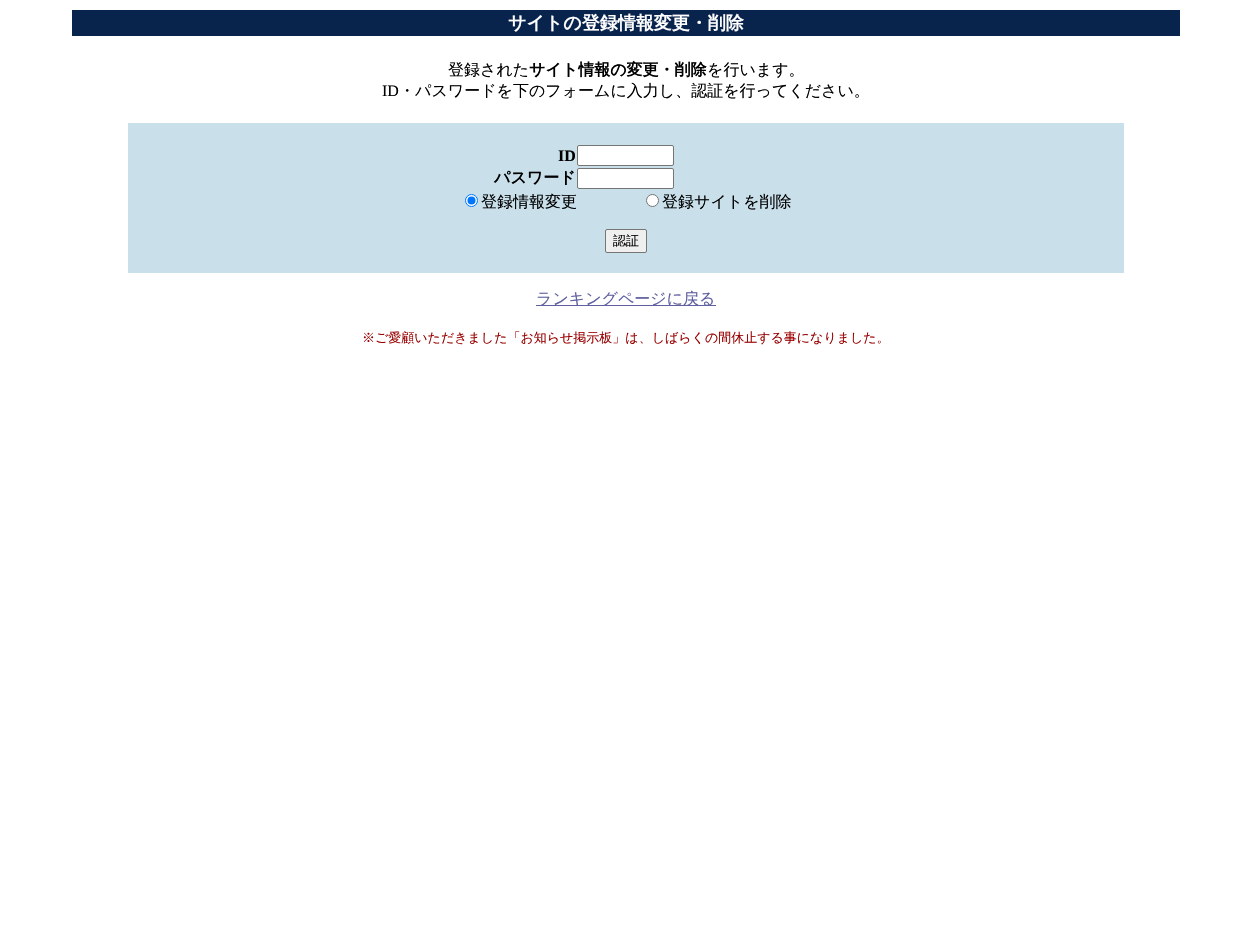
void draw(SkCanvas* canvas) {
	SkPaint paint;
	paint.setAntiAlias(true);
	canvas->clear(0xffffffff);
	paint.setColor(0xff08234c);
	canvas->drawRect(SkRect::MakeXYWH(72, 10, 1108, 26), paint);
	SkFont f1(fontMgr->matchFamilyStyle("WenQuanYi Zen Hei", SkFontStyle::Bold()), 18);
	f1.setSubpixel(true);
	paint.setColor(0xffffffff);
	canvas->drawString("サイトの登録情報変更・削除", 508, 29, f1, paint);
	SkFont f2(fontMgr->matchFamilyStyle("WenQuanYi Zen Hei", SkFontStyle(500, SkFontStyle::kNormal_Width, SkFontStyle::kUpright_Slant)), 16);
	f2.setSubpixel(true);
	paint.setColor(0xff000000);
	canvas->drawString("登録された", 448, 75, f2, paint);
	SkFont f3(fontMgr->matchFamilyStyle("WenQuanYi Zen Hei", SkFontStyle::Bold()), 16);
	f3.setSubpixel(true);
	canvas->drawString("サイト情報の変更・削除", 529, 75, f3, paint);
	canvas->drawString("を行います。", 707, 75, f2, paint);
	SkFont f4(fontMgr->matchFamilyStyle("Liberation Serif", SkFontStyle::Normal()), 16);
	f4.setSubpixel(true);
	canvas->drawString("ID", 382, 96, f4, paint);
	canvas->drawString("・パスワードを下のフォームに入力し、認証を行ってください。", 399, 96, f2, paint);
	paint.setColor(0xffc9e0eb);
	canvas->drawRect(SkRect::MakeXYWH(128, 123, 996, 150), paint);
	SkFont f5(fontMgr->matchFamilyStyle("Liberation Serif", SkFontStyle::Bold()), 16);
	f5.setSubpixel(true);
	paint.setColor(0xff000000);
	canvas->drawString("ID", 558, 161, f5, paint);
	paint.setColor(0xffffffff);
	canvas->drawRoundRect(SkRect::MakeXYWH(577.5, 145.5, 96, 20), 1.5, 1.5, paint);
	paint.setStroke(true);
	paint.setStrokeWidth(1);
	paint.setColor(0xff767676);
	canvas->drawRoundRect(SkRect::MakeXYWH(577.5, 145.5, 96, 20), 1.5, 1.5, paint);
	paint.setStroke(false);
	paint.setColor(0xff000000);
	canvas->drawString("パスワード", 494, 183, f3, paint);
	paint.setColor(0xffffffff);
	canvas->drawRoundRect(SkRect::MakeXYWH(577.5, 168.5, 96, 20), 1.5, 1.5, paint);
	paint.setStroke(true);
	paint.setColor(0xff767676);
	canvas->drawRoundRect(SkRect::MakeXYWH(577.5, 168.5, 96, 20), 1.5, 1.5, paint);
	paint.setStroke(false);
	paint.setColor(0xffffffff);
	canvas->drawCircle(471.5, 200.5, 6, paint);
	paint.setStroke(true);
	paint.setColor(0xff0075ff);
	canvas->drawCircle(471.5, 200.5, 6, paint);
	paint.setStroke(false);
	canvas->drawCircle(471.5, 200.5, 4, paint);
	paint.setColor(0xff000000);
	canvas->drawString("登録情報変更", 481, 207, f2, paint);
	paint.setColor(0xffffffff);
	canvas->drawCircle(652.5, 200.5, 6, paint);
	paint.setStroke(true);
	paint.setColor(0xff767676);
	canvas->drawCircle(652.5, 200.5, 6, paint);
	paint.setStroke(false);
	paint.setColor(0xff000000);
	canvas->drawString("登録サイトを削除", 662, 207, f2, paint);
	paint.setColor(0xffefefef);
	canvas->drawRoundRect(SkRect::MakeXYWH(605.5, 229.5, 41, 23), 1.5, 1.5, paint);
	paint.setStroke(true);
	paint.setColor(0xff767676);
	canvas->drawRoundRect(SkRect::MakeXYWH(605.5, 229.5, 41, 23), 1.5, 1.5, paint);
	SkFont f6(fontMgr->matchFamilyStyle("WenQuanYi Zen Hei", SkFontStyle(500, SkFontStyle::kNormal_Width, SkFontStyle::kUpright_Slant)), 13);
	f6.setSubpixel(true);
	paint.setStroke(false);
	paint.setColor(0xff000000);
	canvas->drawString("認証", 613, 245, f6, paint);
	paint.setColor(0xff6060a0);
	canvas->drawRect(SkRect::MakeXYWH(536, 305, 180, 1), paint);
	canvas->drawString("ランキングページに戻る", 536, 304, f2, paint);
	paint.setColor(0xff990000);
	canvas->drawString("※ご愛顧いただきました「お知らせ掲示板」は、しばらくの間休止する事になりました。", 362, 342, f6, paint);
}
